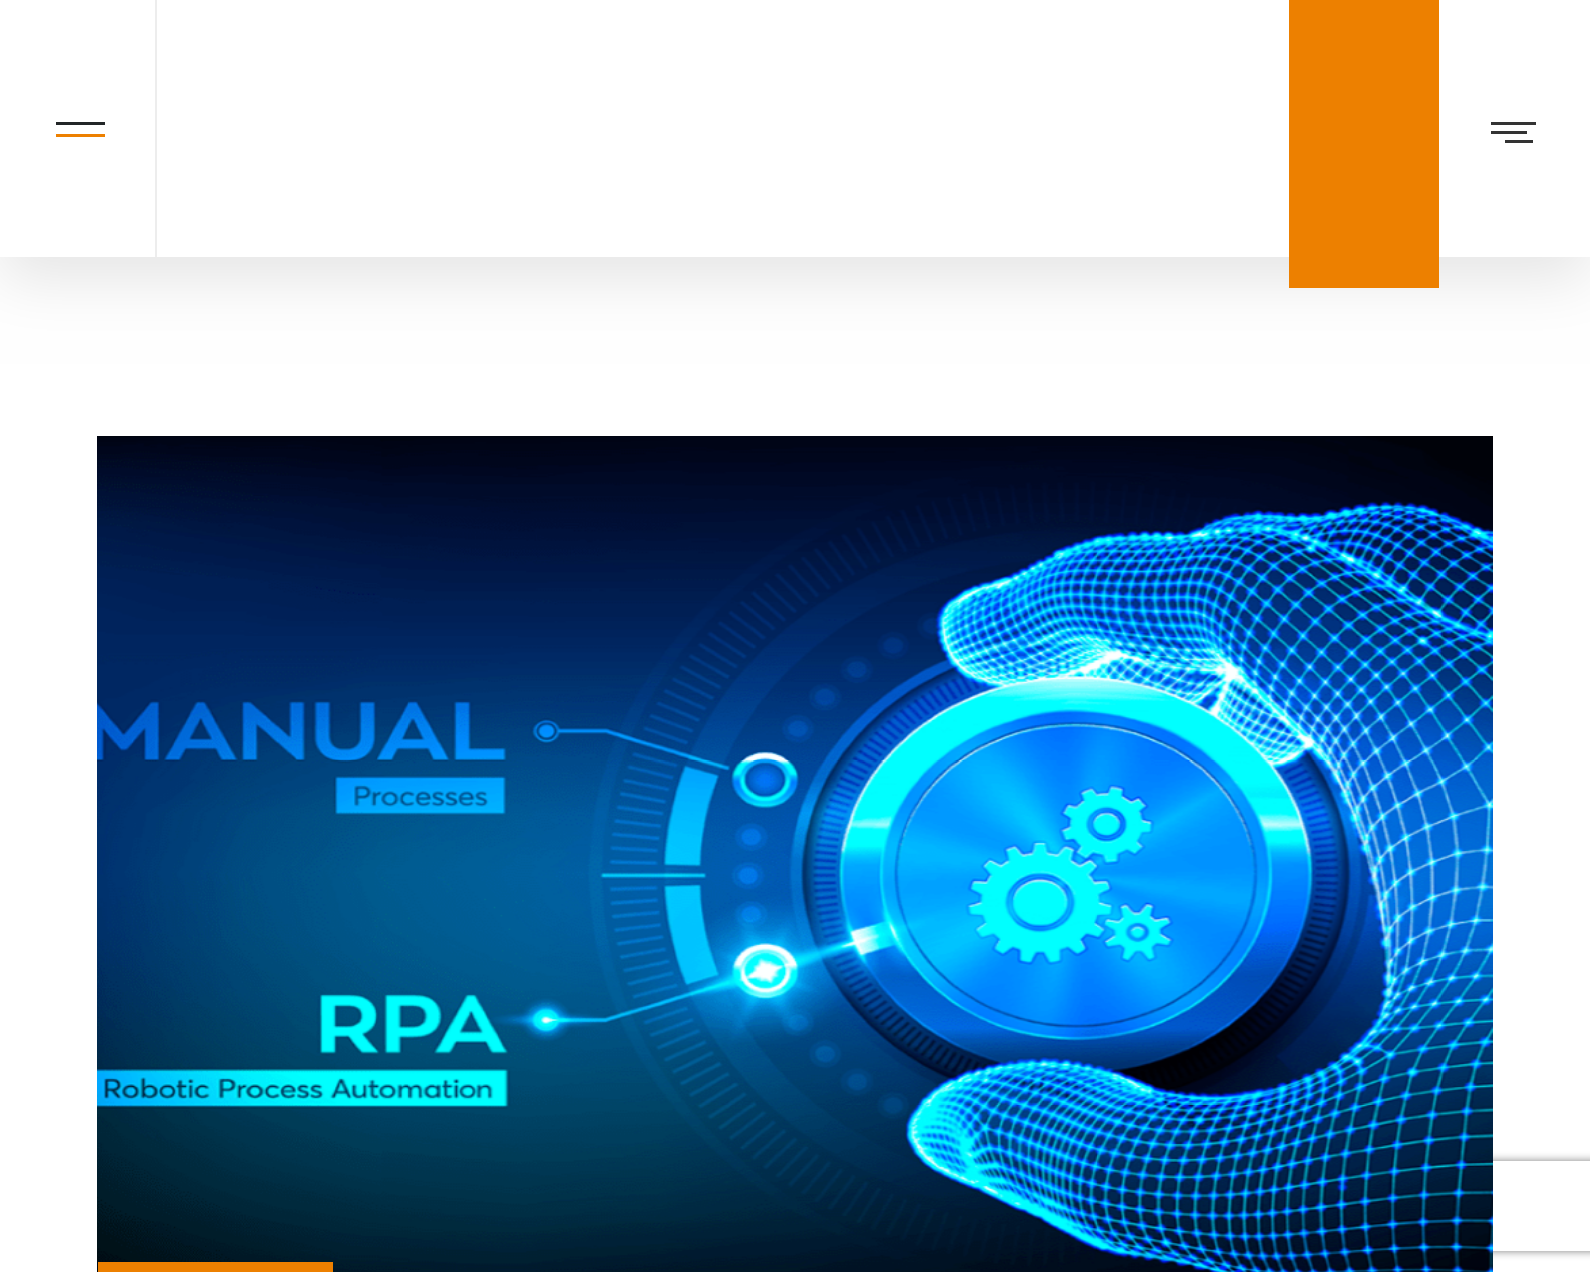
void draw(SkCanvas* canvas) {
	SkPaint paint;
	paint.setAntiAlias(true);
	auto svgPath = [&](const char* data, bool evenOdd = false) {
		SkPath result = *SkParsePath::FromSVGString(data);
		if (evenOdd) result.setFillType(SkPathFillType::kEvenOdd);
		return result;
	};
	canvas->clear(0xffffffff);
	paint.setColor(0x1a000000);
	paint.setMaskFilter(SkMaskFilter::MakeBlur(kNormal_SkBlurStyle, 28.5));
	canvas->drawRect(SkRect::MakeXYWH(0, 23, 1590, 256), paint);
	paint.setMaskFilter(nullptr);
	paint.setColor(0xffffffff);
	canvas->drawRect(SkRect::MakeXYWH(0, 0, 1590, 257), paint);
	paint.setColor(0xffededed);
	canvas->drawRect(SkRect::MakeXYWH(155, 0, 2, 257), paint);
	paint.setColor(0xff222628);
	canvas->drawRect(SkRect::MakeXYWH(56, 122, 49, 3), paint);
	paint.setColor(0xffed8000);
	canvas->drawRect(SkRect::MakeXYWH(56, 134, 49, 3), paint);
	canvas->drawRect(SkRect::MakeXYWH(1289, 0, 150, 288), paint);
	paint.setColor(0xff333333);
	canvas->drawRect(SkRect::MakeXYWH(1491, 131, 36, 3), paint);
	canvas->drawRect(SkRect::MakeXYWH(1491, 122, 45, 3), paint);
	canvas->drawRect(SkRect::MakeXYWH(1505, 140, 28, 3), paint);
	canvas->save();
	canvas->clipPath(svgPath("M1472 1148H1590V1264H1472ZM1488 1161H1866C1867.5 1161 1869 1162.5 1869 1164V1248C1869 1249.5 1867.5 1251 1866 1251H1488C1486.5 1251 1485 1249.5 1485 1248V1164C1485 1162.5 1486.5 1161 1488 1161Z", true), true);
	paint.setColor(0xff808080);
	paint.setMaskFilter(SkMaskFilter::MakeBlur(kNormal_SkBlurStyle, 4));
	canvas->drawRoundRect(SkRect::MakeXYWH(1485, 1161, 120, 90), 3, 3, paint);
	paint.setMaskFilter(nullptr);
	canvas->restore();
	canvas->drawImageRect(SkImages::DeferredFromEncodedData(SkData::MakeFromFileName("img1.png")), SkRect::MakeXYWH(97, 436, 1396, 836), SkSamplingOptions());
	paint.setColor(0xffed8000);
	canvas->drawRect(SkRect::MakeXYWH(98, 1262, 235, 10), paint);
}
